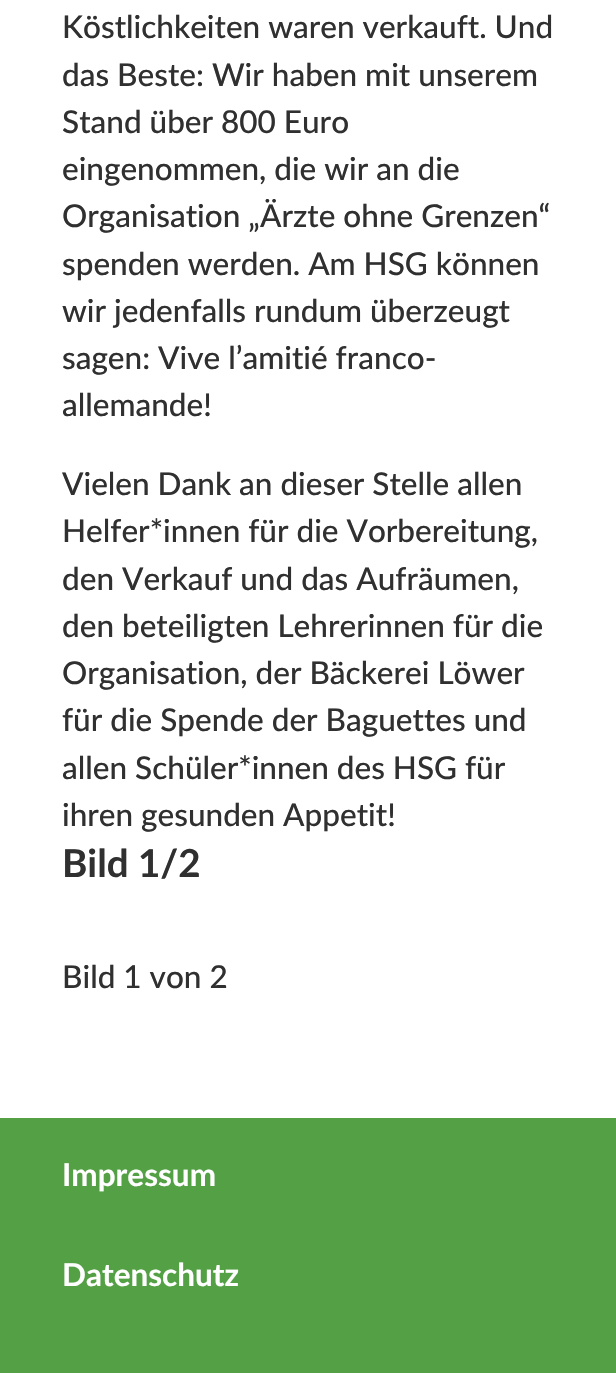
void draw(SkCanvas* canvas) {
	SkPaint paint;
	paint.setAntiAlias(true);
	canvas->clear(0xffffffff);
	SkFont f1(fontMgr->matchFamilyStyle("Lato", SkFontStyle(500, SkFontStyle::kNormal_Width, SkFontStyle::kUpright_Slant)), 31.5);
	f1.setSubpixel(true);
	paint.setColor(0xff303030);
	canvas->drawString("Köstlichkeiten waren verkauft. Und", 62, 38, f1, paint);
	canvas->drawString("das Beste: Wir haben mit unserem", 62, 86, f1, paint);
	canvas->drawString("Stand über 800 Euro", 62, 133, f1, paint);
	canvas->drawString("eingenommen, die wir an die", 62, 180, f1, paint);
	canvas->drawString("Organisation „Ärzte ohne Grenzen“", 62, 227, f1, paint);
	canvas->drawString("spenden werden. Am HSG können", 62, 275, f1, paint);
	canvas->drawString("wir jedenfalls rundum überzeugt", 62, 322, f1, paint);
	canvas->drawString("sagen: Vive l’amitié franco-", 62, 369, f1, paint);
	canvas->drawString("allemande!", 62, 416, f1, paint);
	canvas->drawString("Vielen Dank an dieser Stelle allen", 62, 495, f1, paint);
	canvas->drawString("Helfer*innen für die Vorbereitung,", 62, 542, f1, paint);
	canvas->drawString("den Verkauf und das Aufräumen,", 62, 590, f1, paint);
	canvas->drawString("den beteiligten Lehrerinnen für die", 62, 637, f1, paint);
	canvas->drawString("Organisation, der Bäckerei Löwer", 62, 684, f1, paint);
	canvas->drawString("für die Spende der Baguettes und", 62, 731, f1, paint);
	canvas->drawString("allen Schüler*innen des HSG für", 62, 779, f1, paint);
	canvas->drawString("ihren gesunden Appetit!", 62, 826, f1, paint);
	SkFont f2(fontMgr->matchFamilyStyle("Lato", SkFontStyle::Bold()), 38.5);
	f2.setSubpixel(true);
	canvas->drawString("Bild 1/2", 62, 877, f2, paint);
	canvas->drawString("Bild 1 von 2", 62, 988, f1, paint);
	paint.setColor(0xff54a045);
	canvas->drawRect(SkRect::MakeXYWH(0, 1118, 616, 255), paint);
	SkFont f3(fontMgr->matchFamilyStyle("Lato", SkFontStyle::Bold()), 31.5);
	f3.setSubpixel(true);
	paint.setColor(0xffffffff);
	canvas->drawString("Impressum", 62, 1186, f3, paint);
	canvas->drawString("Datenschutz", 62, 1286, f3, paint);
}
